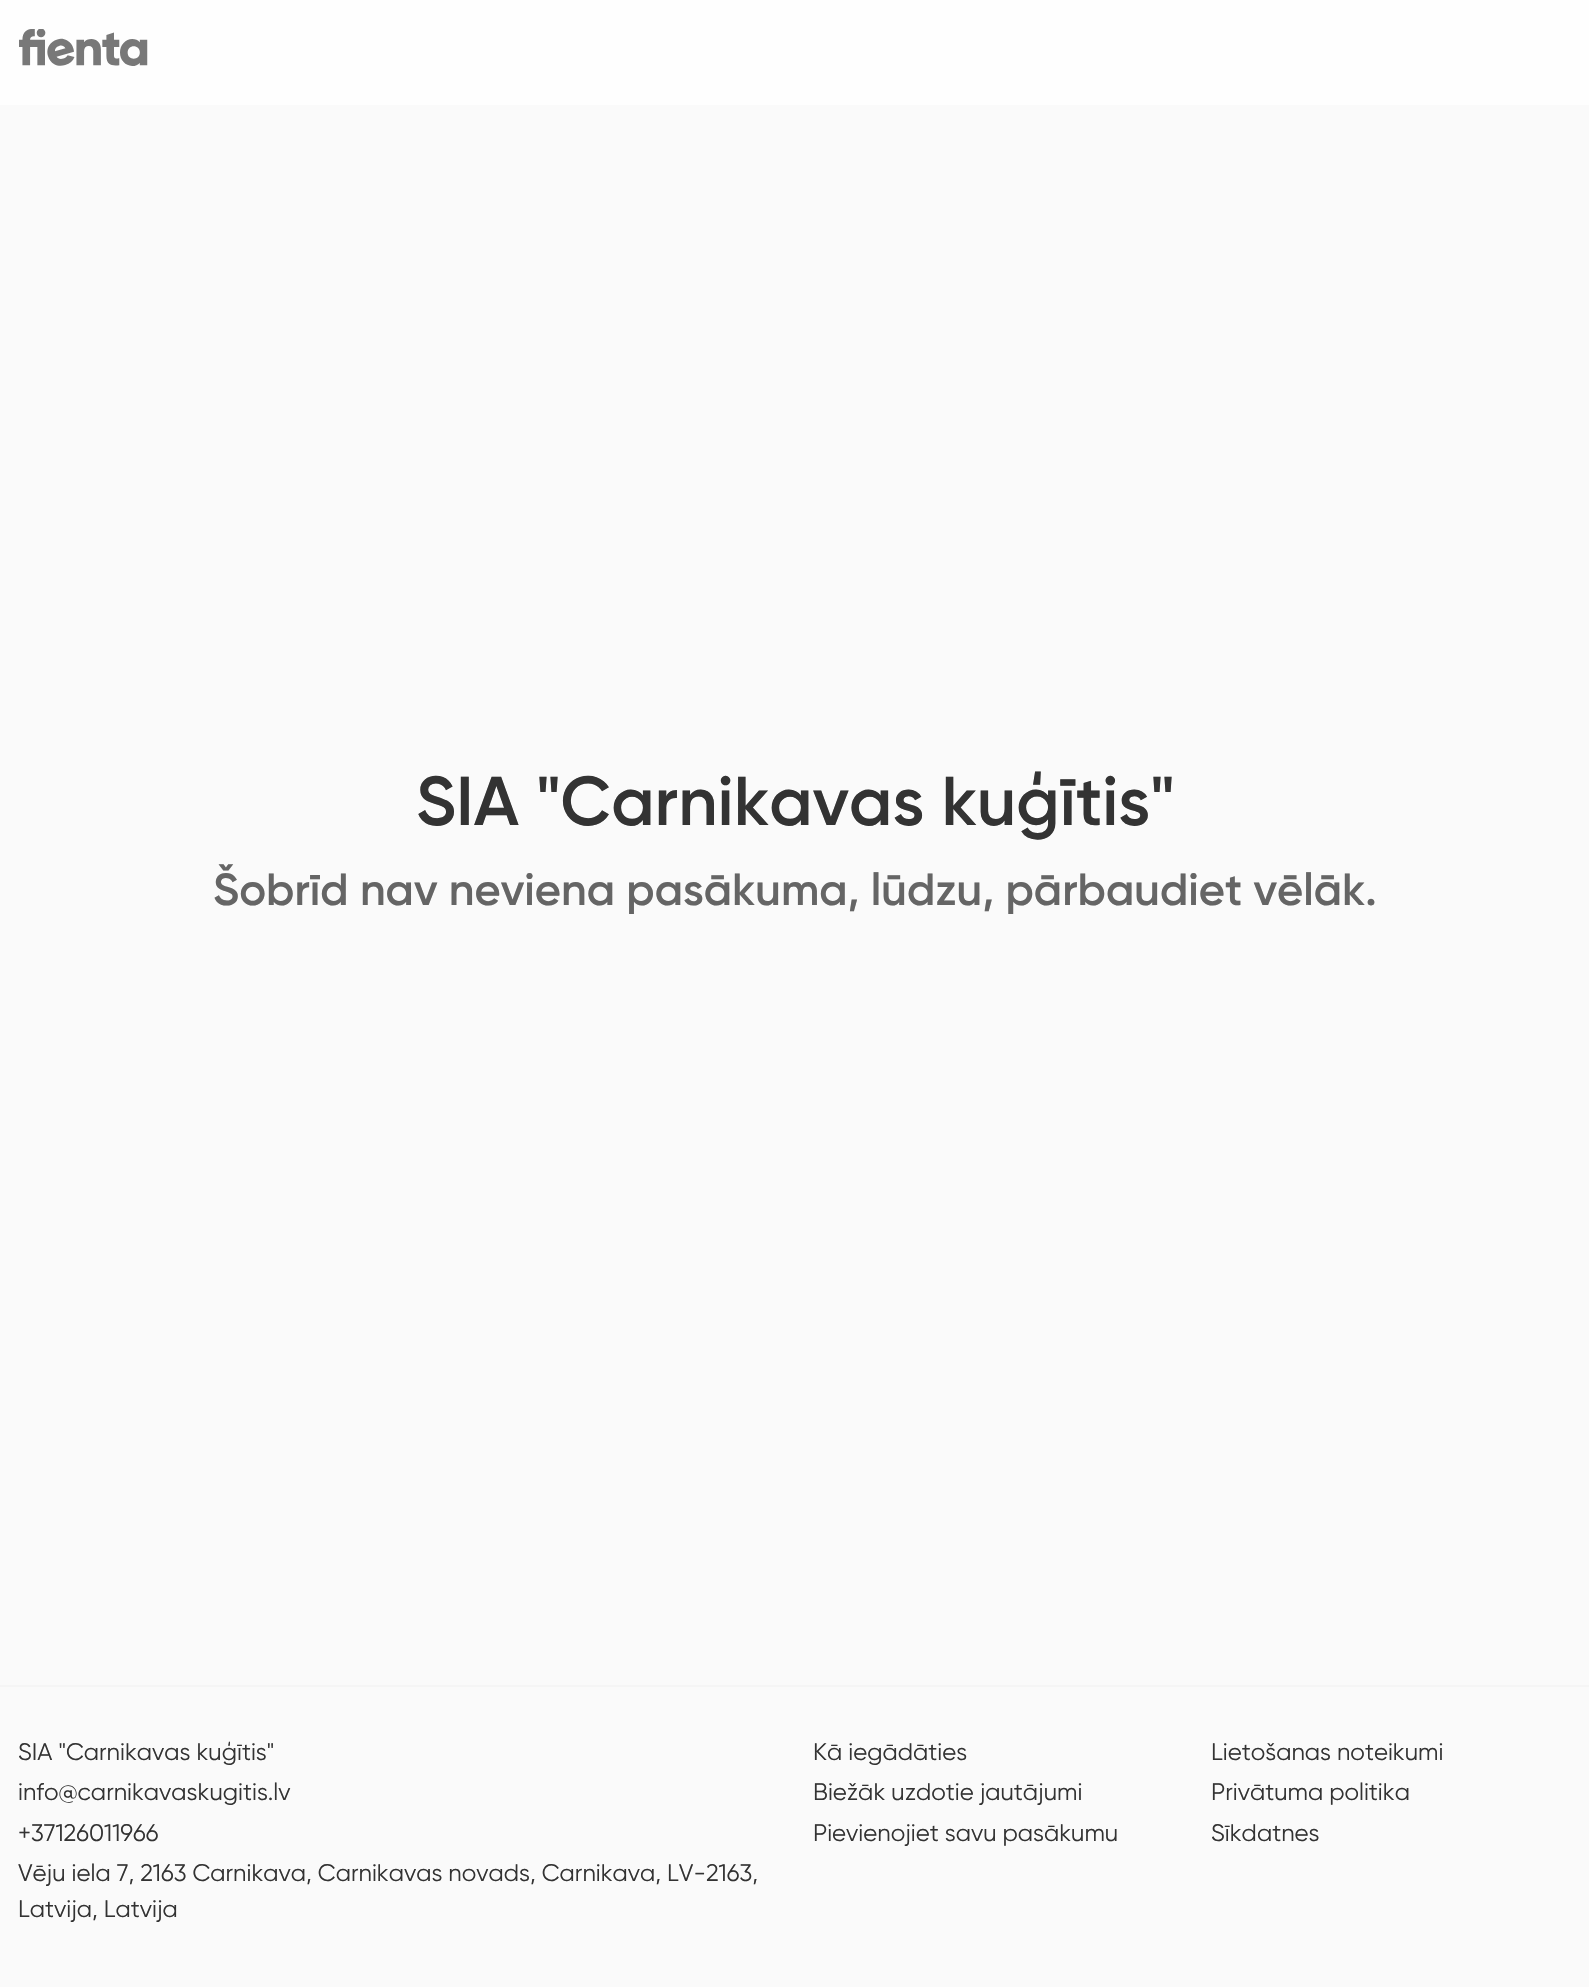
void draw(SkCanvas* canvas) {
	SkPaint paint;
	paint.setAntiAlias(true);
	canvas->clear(0xfffafafa);
	paint.setColor(0xfffefefe);
	canvas->drawRect(SkRect::MakeXYWH(0, 0, 1589, 105), paint);
	canvas->drawImageRect(SkImages::DeferredFromEncodedData(SkData::MakeFromFileName("img1.png")), SkRect::MakeXYWH(19, 29, 129, 37), SkSamplingOptions());
	SkFont f1(fontMgr->matchFamilyStyle("Gilroy", SkFontStyle(600, SkFontStyle::kNormal_Width, SkFontStyle::kUpright_Slant)), 69);
	f1.setSubpixel(true);
	paint.setColor(0xff333333);
	canvas->drawString("SIA \"Carnikavas kuģītis\"", 416, 825, f1, paint);
	SkFont f2(fontMgr->matchFamilyStyle("Gilroy", SkFontStyle(600, SkFontStyle::kNormal_Width, SkFontStyle::kUpright_Slant)), 45);
	f2.setSubpixel(true);
	paint.setColor(0xff656565);
	canvas->drawString("Šobrīd nav neviena pasākuma, lūdzu, pārbaudiet vēlāk.", 213, 905, f2, paint);
	paint.setColor(0xfff5f5f5);
	canvas->drawRect(SkRect::MakeXYWH(0, 1685, 1589, 2), paint);
	SkFont f3(fontMgr->matchFamilyStyle("Gilroy", SkFontStyle::Normal()), 24);
	f3.setSubpixel(true);
	paint.setColor(0xff333333);
	canvas->drawString("SIA \"Carnikavas kuģītis\"", 18, 1760, f3, paint);
	canvas->drawString("info@carnikavaskugitis.lv", 18, 1800, f3, paint);
	canvas->drawString("+37126011966", 18, 1841, f3, paint);
	canvas->drawString("Vēju iela 7, 2163 Carnikava, Carnikavas novads, Carnikava, LV-2163,", 18, 1881, f3, paint);
	canvas->drawString("Latvija, Latvija", 18, 1917, f3, paint);
	canvas->drawString("Kā iegādāties", 813, 1760, f3, paint);
	canvas->drawString("Biežāk uzdotie jautājumi", 813, 1800, f3, paint);
	canvas->drawString("Pievienojiet savu pasākumu", 813, 1841, f3, paint);
	canvas->drawString("Lietošanas noteikumi", 1211, 1760, f3, paint);
	canvas->drawString("Privātuma politika", 1211, 1800, f3, paint);
	canvas->drawString("Sīkdatnes", 1211, 1841, f3, paint);
}
